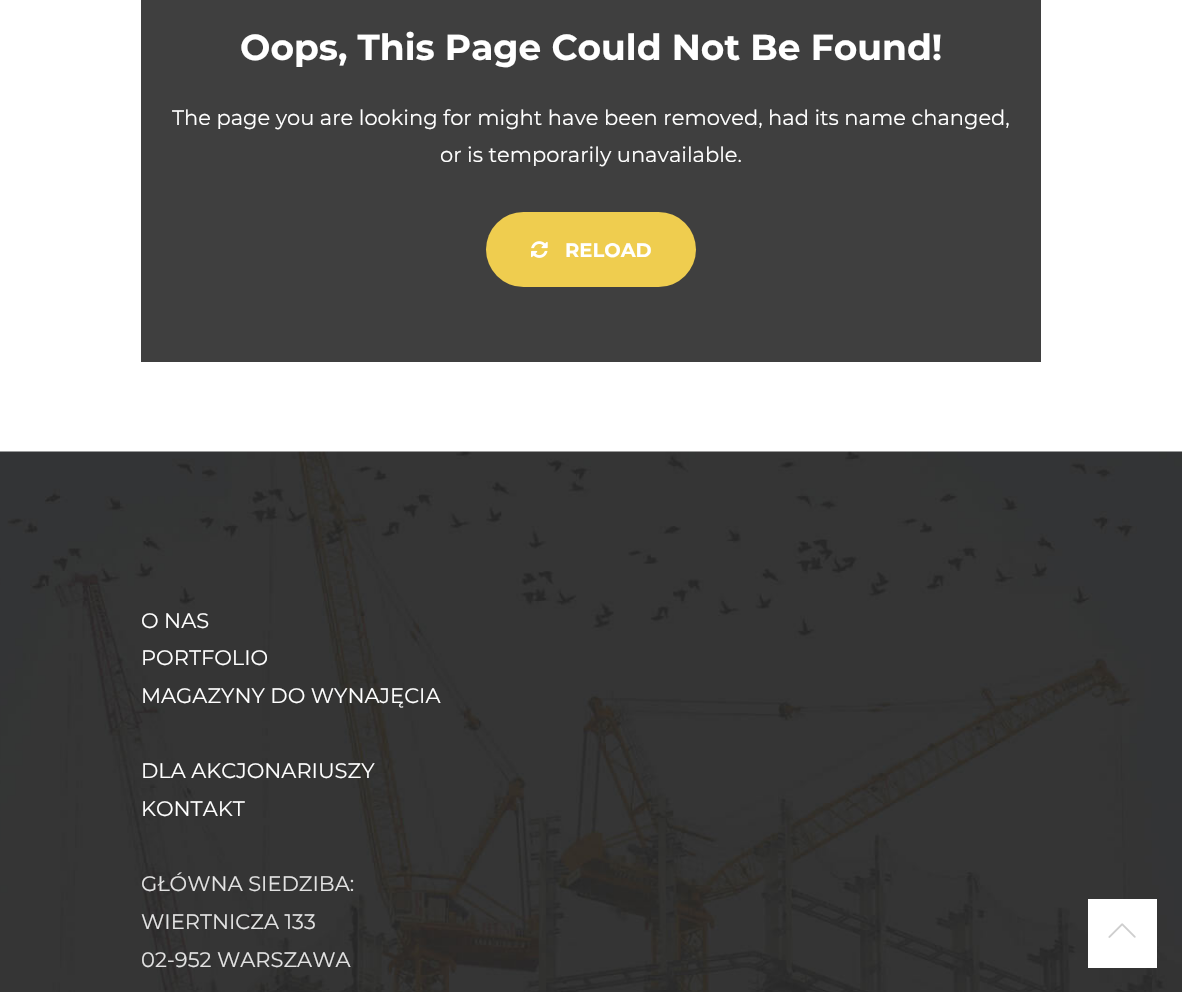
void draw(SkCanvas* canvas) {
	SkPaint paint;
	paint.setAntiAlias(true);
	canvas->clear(0xffffffff);
	paint.setColor(0xff3f3f3f);
	canvas->drawRect(SkRect::MakeXYWH(141, 0, 900, 362), paint);
	SkFont f1(fontMgr->matchFamilyStyle("Montserrat", SkFontStyle::Bold()), 36);
	f1.setSubpixel(true);
	paint.setColor(0xffffffff);
	canvas->drawString("Oops, This Page Could Not Be Found!", 240, 60, f1, paint);
	SkFont f2(fontMgr->matchFamilyStyle("Montserrat", SkFontStyle::Normal()), 21);
	f2.setSubpixel(true);
	canvas->drawString("The page you are looking for might have been removed, had its name changed,", 172, 125, f2, paint);
	canvas->drawString("or is temporarily unavailable.", 440, 162, f2, paint);
	paint.setColor(0xffefcd4f);
	canvas->drawRoundRect(SkRect::MakeXYWH(486, 212, 210, 75), 37.5, 37.5, paint);
	canvas->drawImageRect(SkImages::DeferredFromEncodedData(SkData::MakeFromFileName("img1.png")), SkRect::MakeXYWH(531, 241, 17, 17), SkSamplingOptions());
	SkFont f3(fontMgr->matchFamilyStyle("Montserrat", SkFontStyle::Bold()), 19.5);
	f3.setSubpixel(true);
	paint.setColor(0xffffffff);
	canvas->drawString("RELOAD", 565, 257, f3, paint);
	canvas->drawImageRect(SkImages::DeferredFromEncodedData(SkData::MakeFromFileName("img2.png")), SkRect::MakeXYWH(0, 451, 1182, 541), SkSamplingOptions());
	canvas->drawString("O NAS", 141, 628, f2, paint);
	canvas->drawString("PORTFOLIO", 141, 665, f2, paint);
	canvas->drawString("MAGAZYNY DO WYNAJĘCIA", 141, 703, f2, paint);
	canvas->drawString("DLA AKCJONARIUSZY", 141, 778, f2, paint);
	canvas->drawString("KONTAKT", 141, 816, f2, paint);
	paint.setColor(0xffe3e3e3);
	canvas->drawString("GŁÓWNA SIEDZIBA:", 141, 891, f2, paint);
	canvas->drawString("WIERTNICZA 133", 141, 929, f2, paint);
	canvas->drawString("02-952 WARSZAWA", 141, 967, f2, paint);
	paint.setColor(0xffffffff);
	canvas->drawRect(SkRect::MakeXYWH(1088, 899, 69, 69), paint);
	canvas->drawImageRect(SkImages::DeferredFromEncodedData(SkData::MakeFromFileName("img3.png")), SkRect::MakeXYWH(1108, 923, 28, 15), SkSamplingOptions());
}
